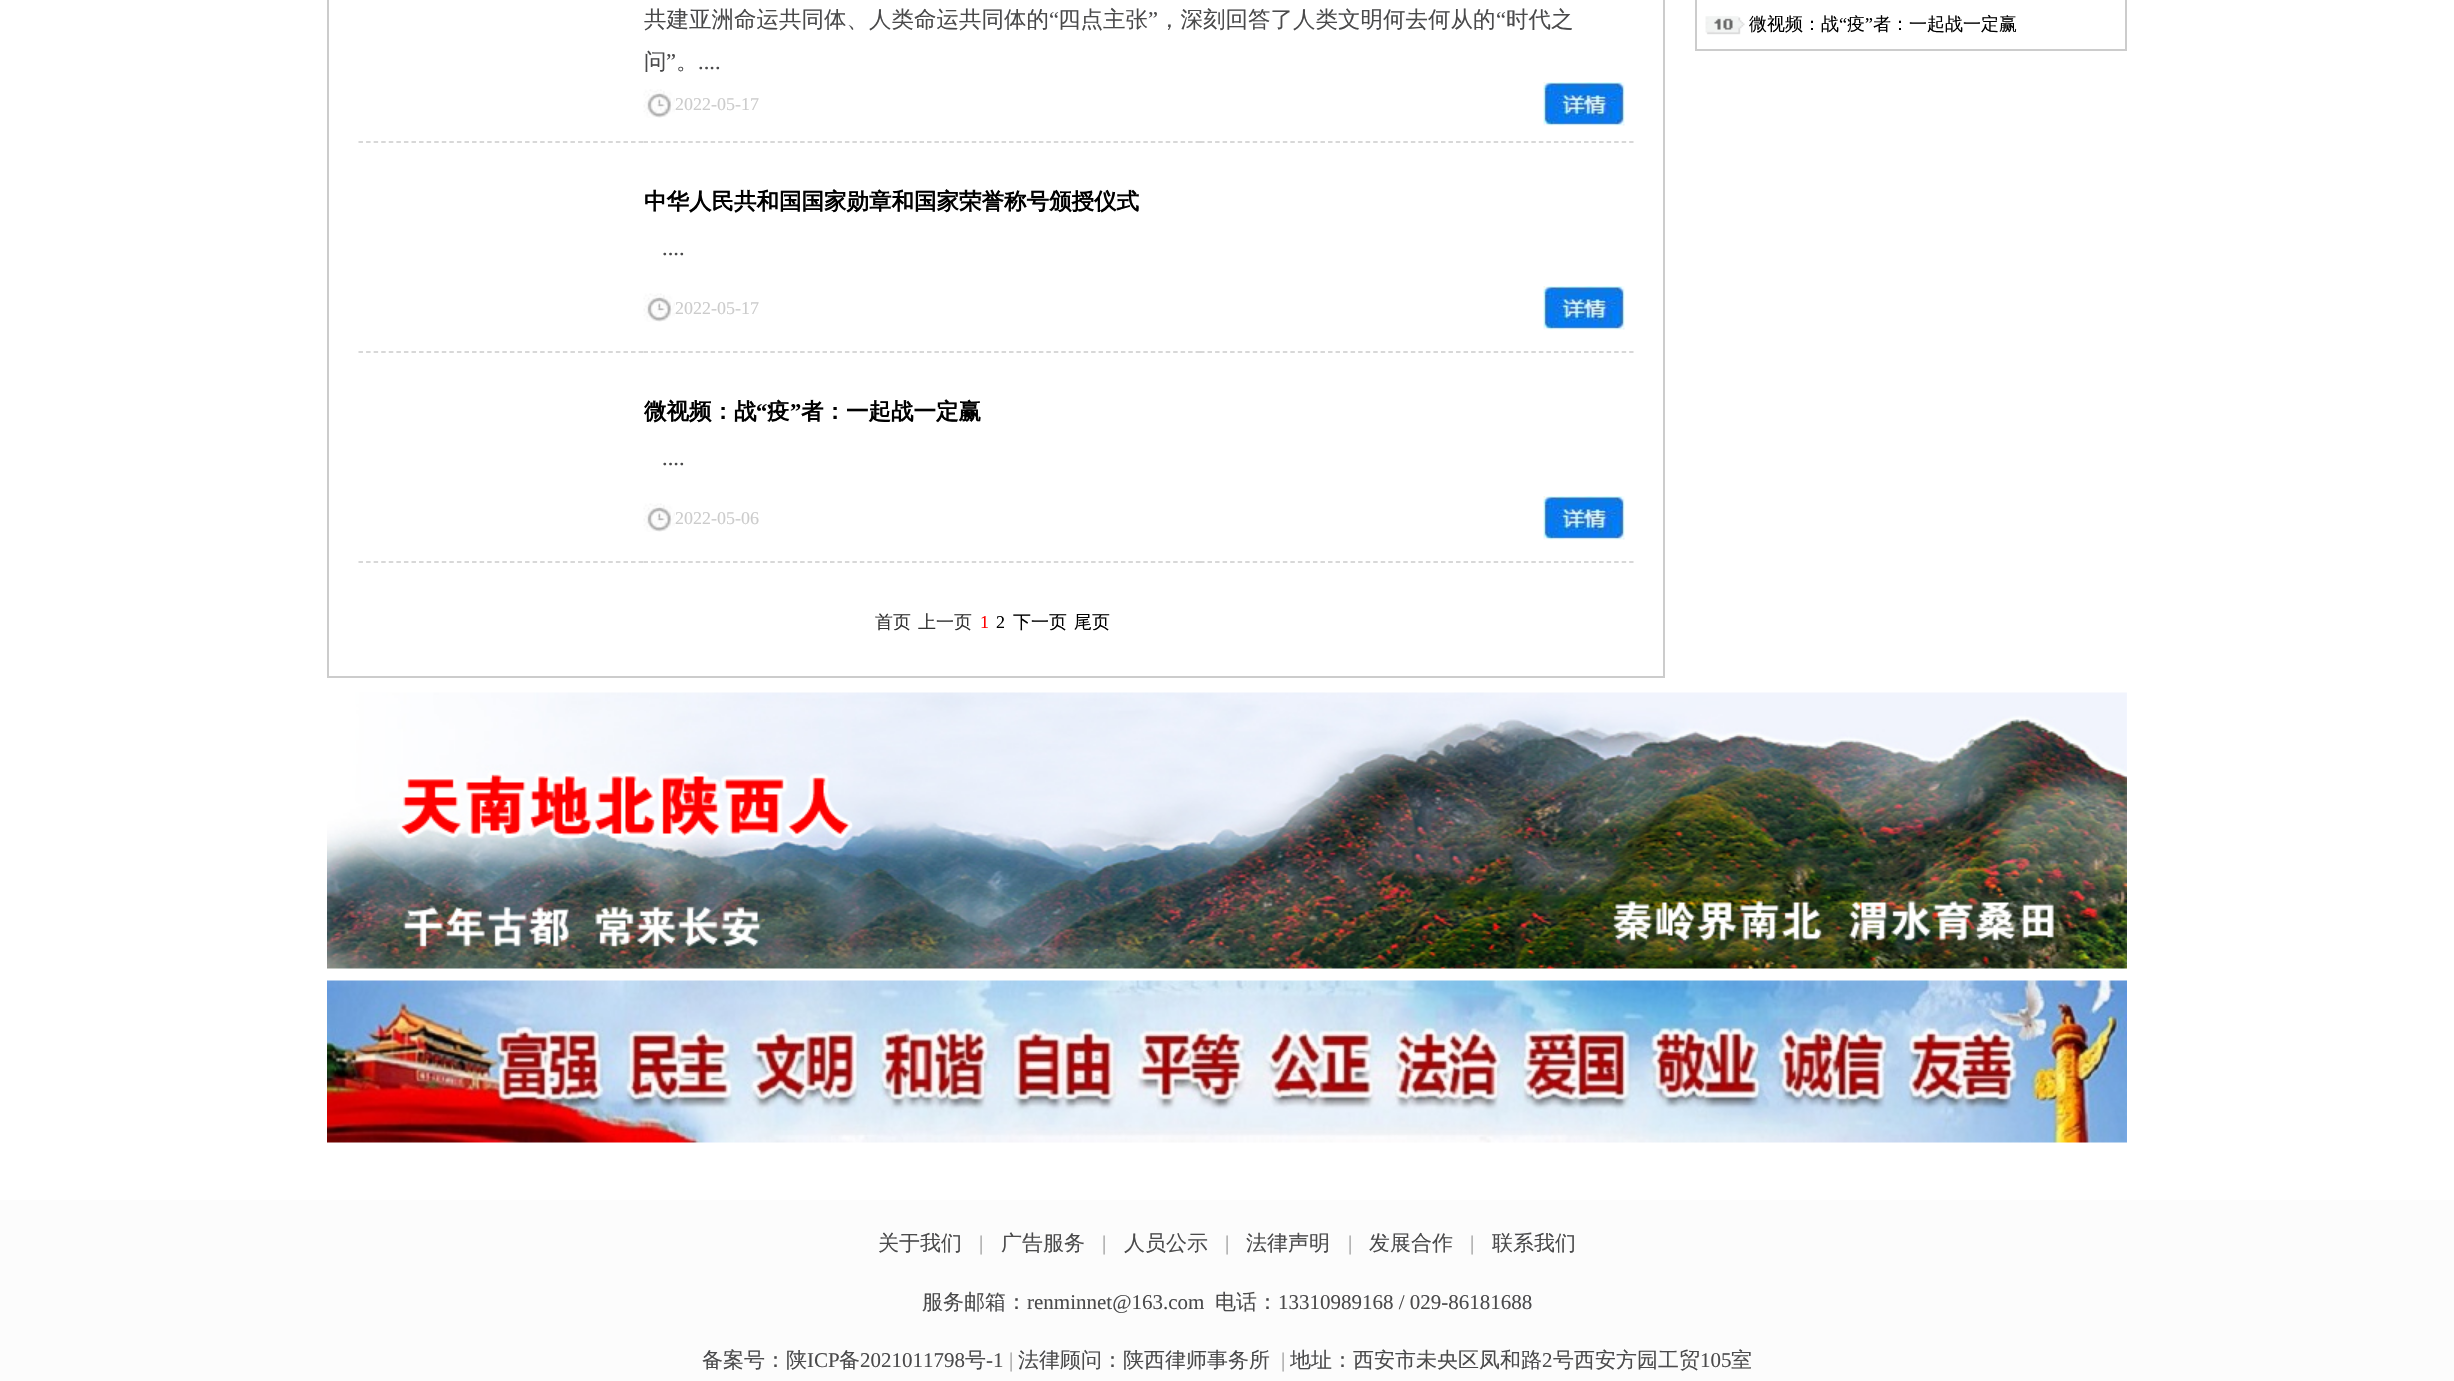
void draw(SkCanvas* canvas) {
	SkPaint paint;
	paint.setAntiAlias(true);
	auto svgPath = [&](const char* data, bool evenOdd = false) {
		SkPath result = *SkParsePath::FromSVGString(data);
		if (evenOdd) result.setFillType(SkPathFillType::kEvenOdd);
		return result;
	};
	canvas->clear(0xffffffff);
	paint.setStroke(true);
	paint.setStrokeWidth(2);
	paint.setColor(0xffcccccc);
	canvas->drawRect(SkRect::MakeXYWH(328, -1, 1336, 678), paint);
	SkFont f1(fontMgr->matchFamilyStyle("WenQuanYi Zen Hei", SkFontStyle(500, SkFontStyle::kNormal_Width, SkFontStyle::kUpright_Slant)), 22.5);
	f1.setSubpixel(true);
	paint.setStroke(false);
	paint.setColor(0xff4a4a4b);
	canvas->drawString("共建亚洲命运共同体、人类命运共同体的", 644, 27, f1, paint);
	SkFont f2(fontMgr->matchFamilyStyle("Liberation Serif", SkFontStyle::Normal()), 22.5);
	f2.setSubpixel(true);
	canvas->drawString("“", 1049, 27, f2, paint);
	canvas->drawString("四点主张", 1058, 27, f1, paint);
	canvas->drawString("”", 1148, 27, f2, paint);
	canvas->drawString("，深刻回答了人类文明何去何从的", 1158, 27, f1, paint);
	canvas->drawString("“", 1496, 27, f2, paint);
	canvas->drawString("时代之", 1506, 27, f1, paint);
	canvas->drawString("问", 644, 69, f1, paint);
	canvas->drawString("”", 666, 69, f2, paint);
	canvas->drawString("。", 676, 69, f1, paint);
	canvas->drawString("....", 698, 69, f2, paint);
	paint.setStroke(true);
	paint.setStrokeWidth(1.5);
	paint.setColor(0xffcccccc);
	paint.setPathEffect(SkDashPathEffect::Make({{4.5f, 3.07f}}, 0));
	canvas->drawPath(svgPath("M358.5 142H643.5"), paint);
	paint.setPathEffect(nullptr);
	paint.setPathEffect(SkDashPathEffect::Make({{4.5f, 2.96f}}, 0));
	canvas->drawPath(svgPath("M643.5 142H1200"), paint);
	paint.setPathEffect(nullptr);
	canvas->drawImageRect(SkImages::DeferredFromEncodedData(SkData::MakeFromFileName("img1.png")), SkRect::MakeXYWH(643, 89, 32, 29), SkSamplingOptions());
	SkFont f3(fontMgr->matchFamilyStyle("Liberation Serif", SkFontStyle::Normal()), 18);
	f3.setSubpixel(true);
	paint.setStroke(false);
	canvas->drawString("2022-05-17", 675, 110, f3, paint);
	paint.setStroke(true);
	paint.setPathEffect(SkDashPathEffect::Make({{4.5f, 3.03f}}, 0));
	canvas->drawPath(svgPath("M1200 142H1633.5"), paint);
	paint.setPathEffect(nullptr);
	canvas->drawImageRect(SkImages::DeferredFromEncodedData(SkData::MakeFromFileName("img2.png")), SkRect::MakeXYWH(1543, 82, 82, 44), SkSamplingOptions());
	SkFont f4(fontMgr->matchFamilyStyle("WenQuanYi Zen Hei", SkFontStyle::Bold()), 22.5);
	f4.setSubpixel(true);
	paint.setStroke(false);
	paint.setColor(0xff000000);
	canvas->drawString("中华人民共和国国家勋章和国家荣誉称号颁授仪式", 644, 209, f4, paint);
	paint.setColor(0xff4a4a4b);
	canvas->drawString("....", 662, 255, f2, paint);
	paint.setStroke(true);
	paint.setColor(0xffcccccc);
	paint.setPathEffect(SkDashPathEffect::Make({{4.5f, 3.07f}}, 0));
	canvas->drawPath(svgPath("M358.5 352H643.5"), paint);
	paint.setPathEffect(nullptr);
	paint.setPathEffect(SkDashPathEffect::Make({{4.5f, 2.96f}}, 0));
	canvas->drawPath(svgPath("M643.5 352H1200"), paint);
	paint.setPathEffect(nullptr);
	canvas->drawImageRect(SkImages::DeferredFromEncodedData(SkData::MakeFromFileName("img1.png")), SkRect::MakeXYWH(643, 293, 32, 29), SkSamplingOptions());
	paint.setStroke(false);
	canvas->drawString("2022-05-17", 675, 314, f3, paint);
	paint.setStroke(true);
	paint.setPathEffect(SkDashPathEffect::Make({{4.5f, 3.03f}}, 0));
	canvas->drawPath(svgPath("M1200 352H1633.5"), paint);
	paint.setPathEffect(nullptr);
	canvas->drawImageRect(SkImages::DeferredFromEncodedData(SkData::MakeFromFileName("img2.png")), SkRect::MakeXYWH(1543, 286, 82, 44), SkSamplingOptions());
	paint.setStroke(false);
	paint.setColor(0xff000000);
	canvas->drawString("微视频：战", 644, 419, f4, paint);
	SkFont f5(fontMgr->matchFamilyStyle("Liberation Serif", SkFontStyle::Bold()), 22.5);
	f5.setSubpixel(true);
	canvas->drawString("“", 756, 419, f5, paint);
	canvas->drawString("疫", 767, 419, f4, paint);
	canvas->drawString("”", 790, 419, f5, paint);
	canvas->drawString("者：一起战一定赢", 801, 419, f4, paint);
	paint.setColor(0xff4a4a4b);
	canvas->drawString("....", 662, 465, f2, paint);
	paint.setStroke(true);
	paint.setColor(0xffcccccc);
	paint.setPathEffect(SkDashPathEffect::Make({{4.5f, 3.07f}}, 0));
	canvas->drawPath(svgPath("M358.5 562H643.5"), paint);
	paint.setPathEffect(nullptr);
	paint.setPathEffect(SkDashPathEffect::Make({{4.5f, 2.96f}}, 0));
	canvas->drawPath(svgPath("M643.5 562H1200"), paint);
	paint.setPathEffect(nullptr);
	canvas->drawImageRect(SkImages::DeferredFromEncodedData(SkData::MakeFromFileName("img1.png")), SkRect::MakeXYWH(643, 503, 32, 29), SkSamplingOptions());
	paint.setStroke(false);
	canvas->drawString("2022-05-06", 675, 524, f3, paint);
	paint.setStroke(true);
	paint.setPathEffect(SkDashPathEffect::Make({{4.5f, 3.03f}}, 0));
	canvas->drawPath(svgPath("M1200 562H1633.5"), paint);
	paint.setPathEffect(nullptr);
	canvas->drawImageRect(SkImages::DeferredFromEncodedData(SkData::MakeFromFileName("img2.png")), SkRect::MakeXYWH(1543, 496, 82, 44), SkSamplingOptions());
	SkFont f6(fontMgr->matchFamilyStyle("WenQuanYi Zen Hei", SkFontStyle(500, SkFontStyle::kNormal_Width, SkFontStyle::kUpright_Slant)), 18);
	f6.setSubpixel(true);
	paint.setStroke(false);
	paint.setColor(0xff333333);
	canvas->drawString("首页", 875, 628, f6, paint);
	canvas->drawString("上一页", 918, 628, f6, paint);
	paint.setColor(0xffff0000);
	canvas->drawString("1", 980, 628, f3, paint);
	paint.setColor(0xff000000);
	canvas->drawString("2", 996, 628, f3, paint);
	canvas->drawString("下一页", 1013, 628, f6, paint);
	canvas->drawString("尾页", 1074, 628, f6, paint);
	canvas->drawImageRect(SkImages::DeferredFromEncodedData(SkData::MakeFromFileName("img3.png")), SkRect::MakeXYWH(1705, 16, 40, 19), SkSamplingOptions());
	paint.setStroke(true);
	paint.setStrokeWidth(2);
	paint.setColor(0xffcccccc);
	canvas->drawRect(SkRect::MakeXYWH(1696, -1, 430, 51), paint);
	paint.setStroke(false);
	paint.setColor(0xff000000);
	canvas->drawString("微视频：战", 1749, 30, f6, paint);
	canvas->drawString("“", 1839, 30, f3, paint);
	canvas->drawString("疫", 1847, 30, f6, paint);
	canvas->drawString("”", 1865, 30, f3, paint);
	canvas->drawString("者：一起战一定赢", 1873, 30, f6, paint);
	canvas->drawImageRect(SkImages::DeferredFromEncodedData(SkData::MakeFromFileName("img4.png")), SkRect::MakeXYWH(327, 692, 1800, 277), SkSamplingOptions());
	canvas->drawImageRect(SkImages::DeferredFromEncodedData(SkData::MakeFromFileName("img5.png")), SkRect::MakeXYWH(327, 980, 1800, 163), SkSamplingOptions());
	paint.setColor(0xfffcfcfc);
	canvas->drawRect(SkRect::MakeXYWH(0, 1200, 2454, 181), paint);
	SkFont f7(fontMgr->matchFamilyStyle("WenQuanYi Zen Hei", SkFontStyle(500, SkFontStyle::kNormal_Width, SkFontStyle::kUpright_Slant)), 21);
	f7.setSubpixel(true);
	paint.setColor(0xff4a4a4b);
	canvas->drawString("关于我们", 878, 1250, f7, paint);
	SkFont f8(fontMgr->matchFamilyStyle("Liberation Serif", SkFontStyle::Normal()), 21);
	f8.setSubpixel(true);
	paint.setColor(0xff999999);
	canvas->drawString("|", 979, 1250, f8, paint);
	paint.setColor(0xff4a4a4b);
	canvas->drawString("广告服务", 1001, 1250, f7, paint);
	paint.setColor(0xff999999);
	canvas->drawString("|", 1102, 1250, f8, paint);
	paint.setColor(0xff4a4a4b);
	canvas->drawString("人员公示", 1124, 1250, f7, paint);
	paint.setColor(0xff999999);
	canvas->drawString("|", 1225, 1250, f8, paint);
	paint.setColor(0xff4a4a4b);
	canvas->drawString("法律声明", 1246, 1250, f7, paint);
	paint.setColor(0xff999999);
	canvas->drawString("|", 1348, 1250, f8, paint);
	paint.setColor(0xff4a4a4b);
	canvas->drawString("发展合作", 1369, 1250, f7, paint);
	paint.setColor(0xff999999);
	canvas->drawString("|", 1470, 1250, f8, paint);
	paint.setColor(0xff4a4a4b);
	canvas->drawString("联系我们", 1492, 1250, f7, paint);
	canvas->drawString("服务邮箱：", 922, 1309, f7, paint);
	canvas->drawString("renminnet@163.com", 1027, 1309, f8, paint);
	canvas->drawString("电话：", 1215, 1309, f7, paint);
	canvas->drawString("13310989168 / 029-86181688", 1278, 1309, f8, paint);
	canvas->drawString("备案号：陕", 702, 1367, f7, paint);
	canvas->drawString("ICP", 807, 1367, f8, paint);
	canvas->drawString("备", 839, 1367, f7, paint);
	canvas->drawString("2021011798", 860, 1367, f8, paint);
	canvas->drawString("号", 965, 1367, f7, paint);
	canvas->drawString("-1", 986, 1367, f8, paint);
	paint.setColor(0xff999999);
	canvas->drawString("|", 1009, 1367, f8, paint);
	paint.setColor(0xff4a4a4b);
	canvas->drawString("法律顾问：陕西律师事务所", 1018, 1367, f7, paint);
	paint.setColor(0xff999999);
	canvas->drawString("|", 1281, 1367, f8, paint);
	paint.setColor(0xff4a4a4b);
	canvas->drawString("地址：西安市未央区凤和路", 1290, 1367, f7, paint);
	canvas->drawString("2", 1542, 1367, f8, paint);
	canvas->drawString("号西安方园工贸", 1553, 1367, f7, paint);
	canvas->drawString("105", 1700, 1367, f8, paint);
	canvas->drawString("室", 1731, 1367, f7, paint);
}
